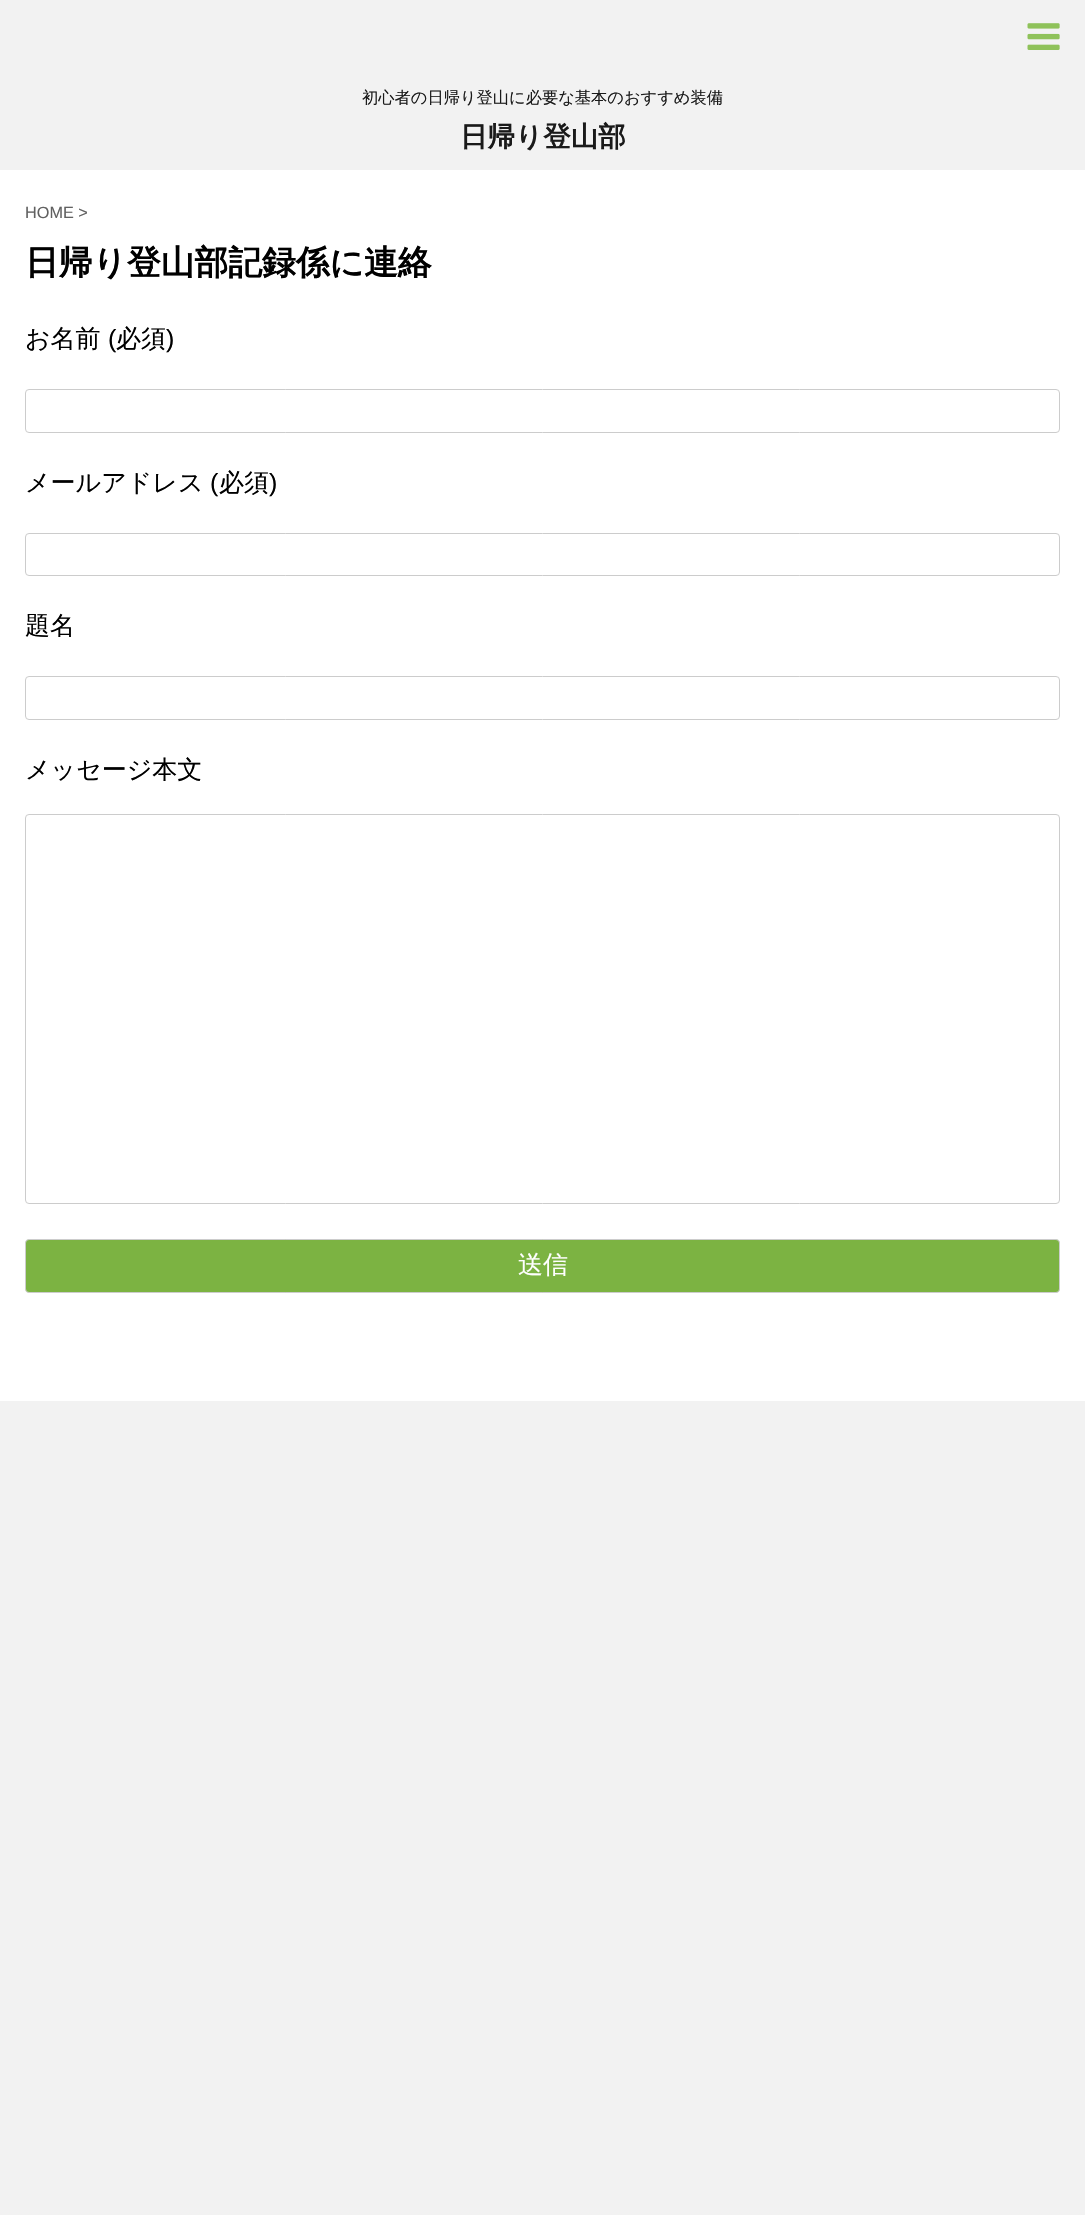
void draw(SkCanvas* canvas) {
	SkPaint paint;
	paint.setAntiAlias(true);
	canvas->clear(0xfff2f2f2);
	canvas->drawImageRect(SkImages::DeferredFromEncodedData(SkData::MakeFromFileName("img1.png")), SkRect::MakeXYWH(1027, 23, 33, 27), SkSamplingOptions());
	SkFont f1(fontMgr->matchFamilyStyle("WenQuanYi Zen Hei", SkFontStyle(500, SkFontStyle::kNormal_Width, SkFontStyle::kUpright_Slant)), 16.25);
	f1.setSubpixel(true);
	paint.setColor(0xff1a1a1a);
	canvas->drawString("初心者の日帰り登山に必要な基本のおすすめ装備", 362, 103, f1, paint);
	SkFont f2(fontMgr->matchFamilyStyle("WenQuanYi Zen Hei", SkFontStyle::Bold()), 27.5);
	f2.setSubpixel(true);
	canvas->drawString("日帰り登山部", 460, 146, f2, paint);
	paint.setColor(0xffffffff);
	canvas->drawRect(SkRect::MakeXYWH(0, 170, 1085, 1231), paint);
	SkFont f3(fontMgr->matchFamilyStyle("Liberation Sans", SkFontStyle::Normal()), 16.25);
	f3.setSubpixel(true);
	paint.setColor(0xff616161);
	canvas->drawString("HOME >", 25, 218, f3, paint);
	SkFont f4(fontMgr->matchFamilyStyle("WenQuanYi Zen Hei", SkFontStyle::Bold()), 33.75);
	f4.setSubpixel(true);
	paint.setColor(0xff000000);
	canvas->drawString("日帰り登山部記録係に連絡", 25, 274, f4, paint);
	SkFont f5(fontMgr->matchFamilyStyle("WenQuanYi Zen Hei", SkFontStyle(500, SkFontStyle::kNormal_Width, SkFontStyle::kUpright_Slant)), 25);
	f5.setSubpixel(true);
	canvas->drawString("お名前", 25, 347, f5, paint);
	SkFont f6(fontMgr->matchFamilyStyle("Liberation Sans", SkFontStyle::Normal()), 25);
	f6.setSubpixel(true);
	canvas->drawString("(", 108, 347, f6, paint);
	canvas->drawString("必須", 116, 347, f5, paint);
	canvas->drawString(")", 166, 347, f6, paint);
	paint.setStroke(true);
	paint.setStrokeWidth(1);
	paint.setColor(0xffcccccc);
	canvas->drawRoundRect(SkRect::MakeXYWH(25.5, 389.5, 1034, 43), 3.5, 3.5, paint);
	paint.setStroke(false);
	paint.setColor(0xff000000);
	canvas->drawString("メールアドレス", 25, 491, f5, paint);
	canvas->drawString("(", 210, 491, f6, paint);
	canvas->drawString("必須", 219, 491, f5, paint);
	canvas->drawString(")", 269, 491, f6, paint);
	paint.setStroke(true);
	paint.setColor(0xffcccccc);
	canvas->drawRoundRect(SkRect::MakeXYWH(25.5, 533.5, 1034, 42), 3.5, 3.5, paint);
	paint.setStroke(false);
	paint.setColor(0xff000000);
	canvas->drawString("題名", 25, 634, f5, paint);
	paint.setStroke(true);
	paint.setColor(0xffcccccc);
	canvas->drawRoundRect(SkRect::MakeXYWH(25.5, 676.5, 1034, 43), 3.5, 3.5, paint);
	paint.setStroke(false);
	paint.setColor(0xff000000);
	canvas->drawString("メッセージ本文", 25, 778, f5, paint);
	paint.setStroke(true);
	paint.setColor(0xffcccccc);
	canvas->drawRoundRect(SkRect::MakeXYWH(25.5, 814.5, 1034, 389), 3.5, 3.5, paint);
	paint.setStroke(false);
	paint.setColor(0xff7cb342);
	canvas->drawRoundRect(SkRect::MakeXYWH(25.5, 1239.5, 1034, 53), 3.5, 3.5, paint);
	paint.setStroke(true);
	paint.setColor(0xffcccccc);
	canvas->drawRoundRect(SkRect::MakeXYWH(25.5, 1239.5, 1034, 53), 3.5, 3.5, paint);
	paint.setStroke(false);
	paint.setColor(0xffffffff);
	canvas->drawString("送信", 518, 1273, f5, paint);
}
